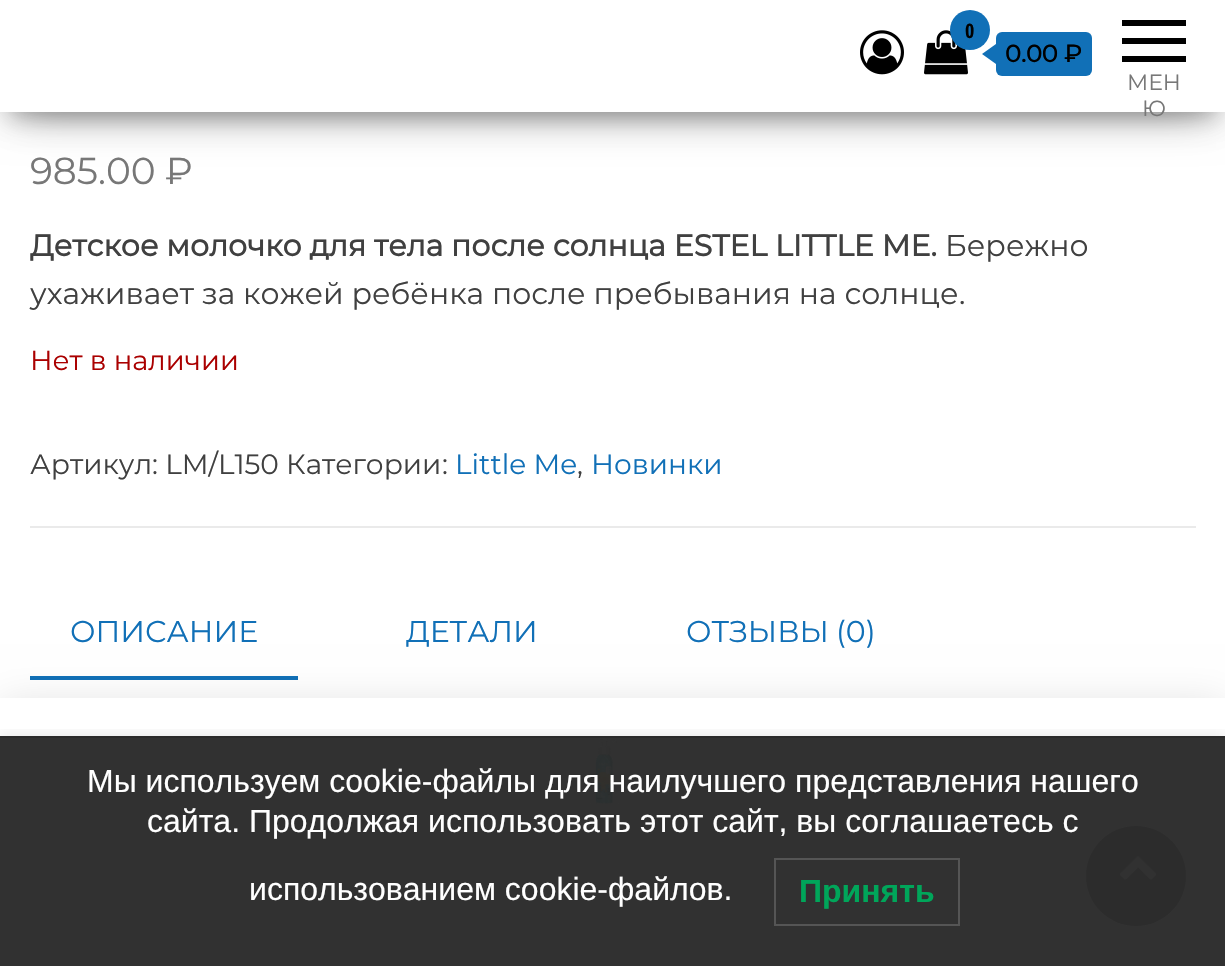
void draw(SkCanvas* canvas) {
	SkPaint paint;
	paint.setAntiAlias(true);
	auto svgPath = [&](const char* data, bool evenOdd = false) {
		SkPath result = *SkParsePath::FromSVGString(data);
		if (evenOdd) result.setFillType(SkPathFillType::kEvenOdd);
		return result;
	};
	canvas->clear(0xffffffff);
	paint.setColor(0x33000000);
	paint.setMaskFilter(SkMaskFilter::MakeBlur(kNormal_SkBlurStyle, 10));
	canvas->drawRect(SkRect::MakeXYWH(10, 26, 1206, 92), paint);
	paint.setMaskFilter(nullptr);
	paint.setColor(0x1f000000);
	paint.setMaskFilter(SkMaskFilter::MakeBlur(kNormal_SkBlurStyle, 20));
	canvas->drawRect(SkRect::MakeXYWH(0, 6, 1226, 112), paint);
	paint.setMaskFilter(nullptr);
	paint.setColor(0x6b000000);
	paint.setMaskFilter(SkMaskFilter::MakeBlur(kNormal_SkBlurStyle, 20));
	canvas->drawRect(SkRect::MakeXYWH(24, 44, 1178, 64), paint);
	paint.setMaskFilter(nullptr);
	paint.setColor(0xffffffff);
	canvas->drawRect(SkRect::MakeXYWH(0, 0, 1225, 112), paint);
	canvas->drawImageRect(SkImages::DeferredFromEncodedData(SkData::MakeFromFileName("img1.png")), SkRect::MakeXYWH(860, 30, 44, 45), SkSamplingOptions());
	canvas->drawImageRect(SkImages::DeferredFromEncodedData(SkData::MakeFromFileName("img2.png")), SkRect::MakeXYWH(924, 30, 44, 45), SkSamplingOptions());
	paint.setColor(0xff1170b7);
	canvas->drawCircle(970, 30, 20, paint);
	SkFont f1(fontMgr->matchFamilyStyle("Open Sans Condensed", SkFontStyle::Bold()), 20);
	f1.setSubpixel(true);
	paint.setColor(0xff000000);
	canvas->drawString("0", 965, 38, f1, paint);
	paint.setColor(0xff1170b7);
	canvas->drawRoundRect(SkRect::MakeXYWH(996, 32, 96, 44), 6, 6, paint);
	canvas->drawPath(svgPath("M996 44V64L982 54Z"), paint);
	SkFont f2(fontMgr->matchFamilyStyle("Montserrat", SkFontStyle::Bold()), 24);
	f2.setSubpixel(true);
	paint.setColor(0xff000000);
	canvas->drawString("0.00 ₽", 1005, 62, f2, paint);
	canvas->drawRect(SkRect::MakeXYWH(1122, 20, 64, 6), paint);
	canvas->drawRect(SkRect::MakeXYWH(1122, 38, 64, 6), paint);
	canvas->drawRect(SkRect::MakeXYWH(1122, 56, 64, 6), paint);
	SkFont f3(fontMgr->matchFamilyStyle("Montserrat", SkFontStyle(100, SkFontStyle::kNormal_Width, SkFontStyle::kUpright_Slant)), 22);
	f3.setSubpixel(true);
	paint.setColor(0xff777777);
	canvas->drawString("МЕН", 1127, 90, f3, paint);
	canvas->drawString("Ю", 1142, 116, f3, paint);
	SkFont f4(fontMgr->matchFamilyStyle("Montserrat", SkFontStyle::Normal()), 37.5);
	f4.setSubpixel(true);
	canvas->drawString("985.00", 30, 184, f4, paint);
	SkFont f5(fontMgr->matchFamilyStyle("Montserrat", SkFontStyle(100, SkFontStyle::kNormal_Width, SkFontStyle::kUpright_Slant)), 37.5);
	f5.setSubpixel(true);
	canvas->drawString("₽", 165, 184, f5, paint);
	SkFont f6(fontMgr->matchFamilyStyle("Montserrat", SkFontStyle::Bold()), 30);
	f6.setSubpixel(true);
	paint.setColor(0xff404040);
	canvas->drawString("Детское молочко для тела после солнца ESTEL LITTLE ME.", 30, 256, f6, paint);
	SkFont f7(fontMgr->matchFamilyStyle("Montserrat", SkFontStyle(100, SkFontStyle::kNormal_Width, SkFontStyle::kUpright_Slant)), 30);
	f7.setSubpixel(true);
	canvas->drawString("Бережно", 945, 256, f7, paint);
	canvas->drawString("ухаживает за кожей ребёнка после пребывания на солнце", 30, 304, f7, paint);
	SkFont f8(fontMgr->matchFamilyStyle("Montserrat", SkFontStyle::Normal()), 30);
	f8.setSubpixel(true);
	canvas->drawString(".", 959, 304, f8, paint);
	SkFont f9(fontMgr->matchFamilyStyle("Montserrat", SkFontStyle(100, SkFontStyle::kNormal_Width, SkFontStyle::kUpright_Slant)), 27.5);
	f9.setSubpixel(true);
	paint.setColor(0xffaa0000);
	canvas->drawString("Нет в наличии", 30, 370, f9, paint);
	paint.setColor(0xffeaeaea);
	canvas->drawRect(SkRect::MakeXYWH(30, 526, 1166, 2), paint);
	SkFont f10(fontMgr->matchFamilyStyle("Montserrat", SkFontStyle(100, SkFontStyle::kNormal_Width, SkFontStyle::kUpright_Slant)), 28);
	f10.setSubpixel(true);
	paint.setColor(0xff404040);
	canvas->drawString("Артикул", 30, 474, f10, paint);
	SkFont f11(fontMgr->matchFamilyStyle("Montserrat", SkFontStyle::Normal()), 28);
	f11.setSubpixel(true);
	canvas->drawString(": LM/L150", 152, 474, f11, paint);
	canvas->drawString("Категории", 286, 474, f10, paint);
	canvas->drawString(":", 442, 474, f11, paint);
	paint.setColor(0xff1170b7);
	canvas->drawString("Little Me", 455, 474, f11, paint);
	paint.setColor(0xff404040);
	canvas->drawString(",", 577, 474, f11, paint);
	paint.setColor(0xff1170b7);
	canvas->drawString("Новинки", 591, 474, f10, paint);
	canvas->drawRect(SkRect::MakeXYWH(30, 676, 268, 4), paint);
	canvas->drawString("ОПИСАНИЕ", 70, 642, f7, paint);
	canvas->drawString("ДЕТАЛИ", 406, 642, f7, paint);
	canvas->drawString("ОТЗЫВЫ", 686, 642, f7, paint);
	canvas->drawString("(0)", 836, 642, f8, paint);
	paint.setColor(0x1f000000);
	paint.setMaskFilter(SkMaskFilter::MakeBlur(kNormal_SkBlurStyle, 20));
	canvas->drawRect(SkRect::MakeXYWH(0, 704, 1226, 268), paint);
	paint.setMaskFilter(nullptr);
	paint.setColor(0xffffffff);
	canvas->drawRect(SkRect::MakeXYWH(0, 698, 1225, 38), paint);
	paint.setColor(0xff313131);
	canvas->drawRect(SkRect::MakeXYWH(0, 738, 1225, 228), paint);
	canvas->drawImageRect(SkImages::DeferredFromEncodedData(SkData::MakeFromFileName("img3.png")), SkRect::MakeXYWH(589, 738, 32, 66), SkSamplingOptions());
	paint.setColor(0xb32a2a2a);
	canvas->drawCircle(1136, 876, 50, paint);
	canvas->drawImageRect(SkImages::DeferredFromEncodedData(SkData::MakeFromFileName("img4.png")), SkRect::MakeXYWH(1120, 856, 36, 24), SkSamplingOptions());
	canvas->save();
	canvas->clipRect(SkRect::MakeXYWH(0, 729, 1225, 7));
	paint.setColor(0x1a000000);
	paint.setMaskFilter(SkMaskFilter::MakeBlur(kNormal_SkBlurStyle, 8));
	canvas->drawRect(SkRect::MakeXYWH(0, 736, 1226, 230), paint);
	paint.setMaskFilter(nullptr);
	canvas->restore();
	paint.setColor(0xff2b2b2b);
	canvas->drawRect(SkRect::MakeXYWH(0, 736, 1225, 2), paint);
	SkFont f12(fontMgr->matchFamilyStyle("Liberation Sans", SkFontStyle::Normal()), 32);
	f12.setSubpixel(true);
	paint.setColor(0xffffffff);
	canvas->drawString("Мы используем cookie-файлы для наилучшего представления нашего", 87, 792, f12, paint);
	canvas->drawString("сайта. Продолжая использовать этот сайт, вы соглашаетесь с", 147, 832, f12, paint);
	canvas->drawString("использованием cookie-файлов.", 249, 900, f12, paint);
	paint.setStroke(true);
	paint.setStrokeWidth(2);
	paint.setColor(0xff555555);
	canvas->drawRect(SkRect::MakeXYWH(775, 859, 184, 66), paint);
	SkFont f13(fontMgr->matchFamilyStyle("Liberation Sans", SkFontStyle::Bold()), 32);
	f13.setSubpixel(true);
	paint.setStroke(false);
	paint.setColor(0xff00a65a);
	canvas->drawString("Принять", 799, 902, f13, paint);
}
